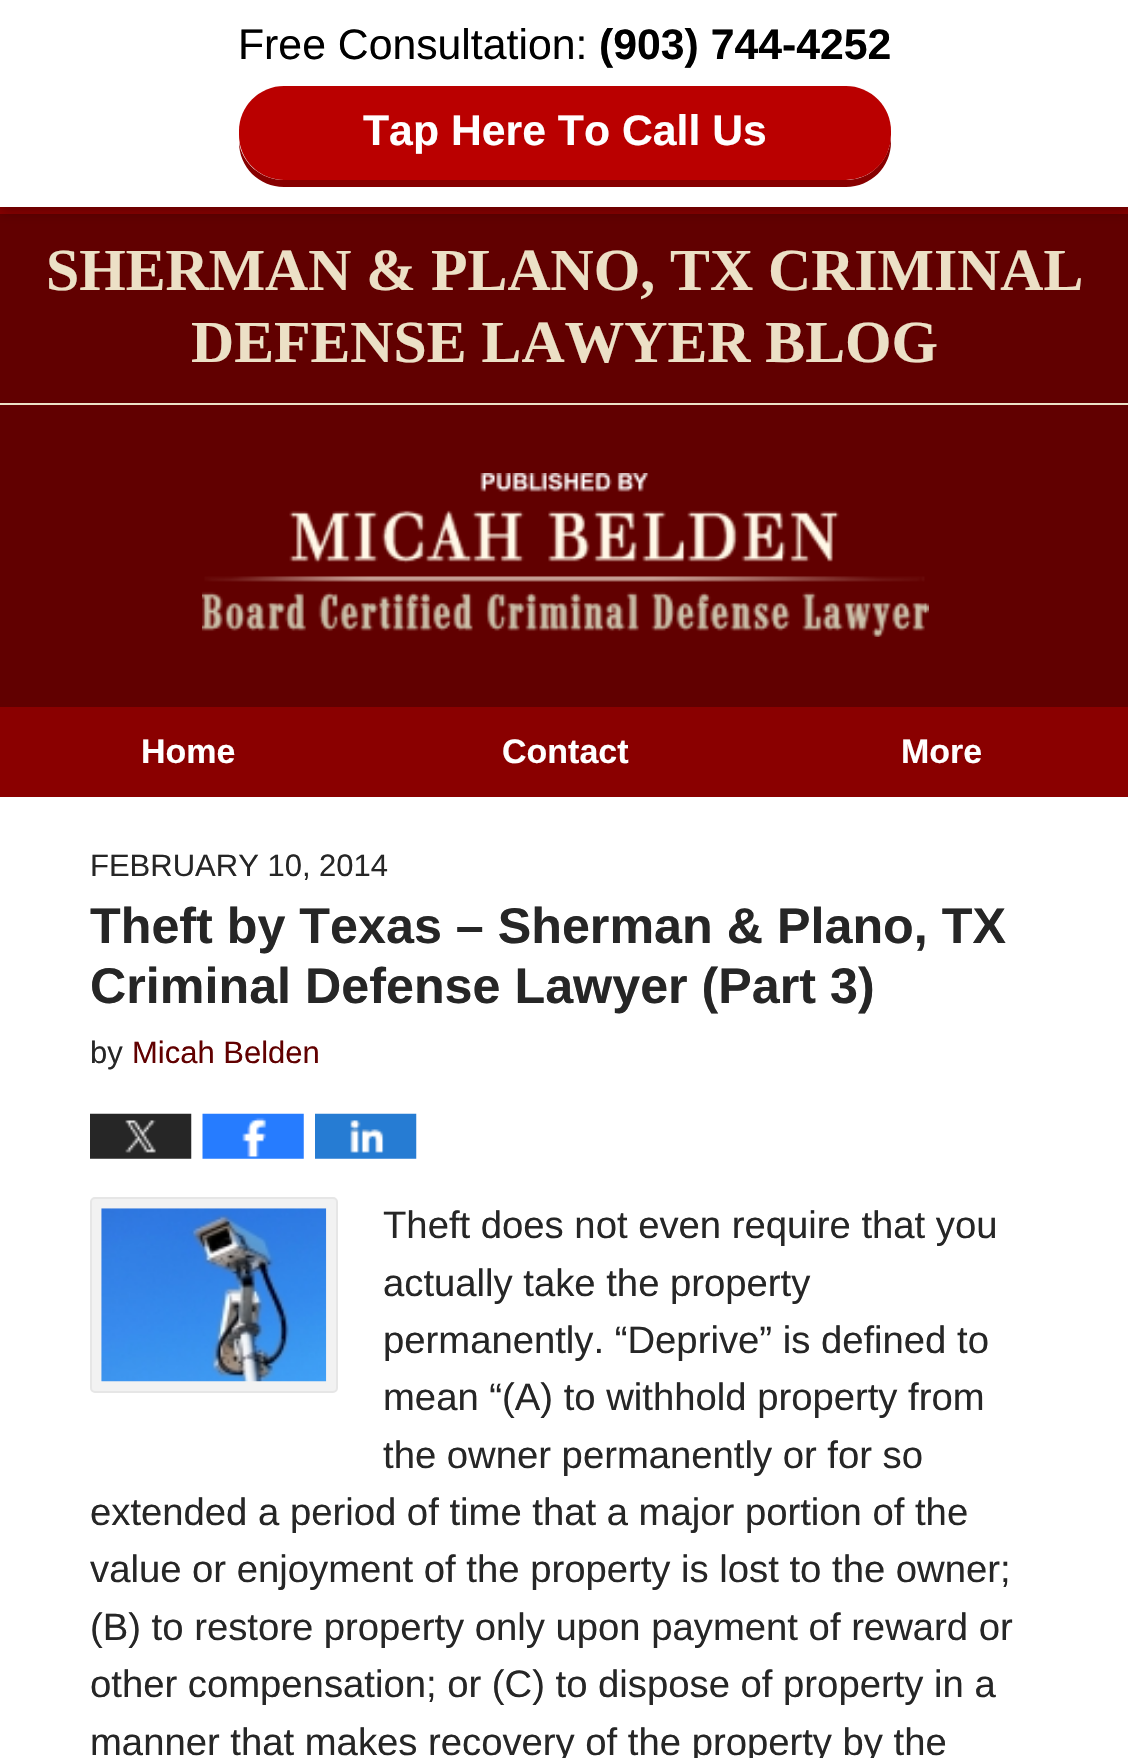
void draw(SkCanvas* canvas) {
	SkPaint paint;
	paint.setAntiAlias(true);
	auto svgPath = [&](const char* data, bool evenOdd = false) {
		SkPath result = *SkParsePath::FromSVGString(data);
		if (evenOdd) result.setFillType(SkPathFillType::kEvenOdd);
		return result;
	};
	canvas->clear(0xffffffff);
	paint.setColor(0xff610000);
	canvas->drawRect(SkRect::MakeXYWH(0, 214, 1128, 189), paint);
	paint.setColor(0xff8a0000);
	canvas->drawRect(SkRect::MakeXYWH(0, 207, 1128, 7), paint);
	paint.setColor(0x42000000);
	paint.setMaskFilter(SkMaskFilter::MakeBlur(kNormal_SkBlurStyle, 5.5));
	canvas->drawRect(SkRect::MakeXYWH(0, 5, 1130, 207), paint);
	paint.setMaskFilter(nullptr);
	paint.setColor(0xffffffff);
	canvas->drawRect(SkRect::MakeXYWH(0, 0, 1128, 207), paint);
	SkFont f1(fontMgr->matchFamilyStyle("Liberation Sans", SkFontStyle::Normal()), 42.75);
	f1.setSubpixel(true);
	paint.setColor(0xff000000);
	canvas->drawString("Free Consultation:", 238, 59, f1, paint);
	SkFont f2(fontMgr->matchFamilyStyle("Liberation Sans", SkFontStyle::Bold()), 42.75);
	f2.setSubpixel(true);
	canvas->drawString("(903) 744-4252", 599, 59, f2, paint);
	paint.setColor(0xff870000);
	canvas->drawPath(svgPath("M239 142C239 167 259 187 284 187H846C871 187 891 167 891 142V136C890 160 871 180 846 180H284C261 180 242 163 239 142Z"), paint);
	paint.setColor(0xffba0000);
	canvas->drawRoundRect(SkRect::MakeXYWH(239, 86, 652, 94), 45, 45, paint);
	paint.setColor(0xffffffff);
	canvas->drawString("Tap Here To Call Us", 363, 145, f2, paint);
	SkFont f3(fontMgr->matchFamilyStyle("Liberation Serif", SkFontStyle::Bold()), 59.75);
	f3.setSubpixel(true);
	paint.setColor(0xffece0c6);
	canvas->drawString("SHERMAN & PLANO, TX CRIMINAL", 46, 290, f3, paint);
	canvas->drawString("DEFENSE LAWYER BLOG", 191, 362, f3, paint);
	paint.setColor(0xff610000);
	canvas->drawRect(SkRect::MakeXYWH(0, 405, 1128, 302), paint);
	paint.setColor(0xffece0c6);
	canvas->drawRect(SkRect::MakeXYWH(0, 403, 1128, 2), paint);
	canvas->drawImageRect(SkImages::DeferredFromEncodedData(SkData::MakeFromFileName("img1.png")), SkRect::MakeXYWH(202, 473, 727, 164), SkSamplingOptions());
	paint.setColor(0xff8a0000);
	canvas->drawRect(SkRect::MakeXYWH(0, 707, 1128, 90), paint);
	SkFont f4(fontMgr->matchFamilyStyle("Liberation Sans", SkFontStyle::Bold()), 34);
	f4.setSubpixel(true);
	paint.setColor(0xffffffff);
	canvas->drawString("Home", 141, 763, f4, paint);
	canvas->drawString("Contact", 502, 763, f4, paint);
	canvas->drawString("More", 901, 763, f4, paint);
	SkFont f5(fontMgr->matchFamilyStyle("Liberation Sans", SkFontStyle::Normal()), 31);
	f5.setSubpixel(true);
	paint.setColor(0xff262626);
	canvas->drawString("FEBRUARY 10, 2014", 90, 876, f5, paint);
	SkFont f6(fontMgr->matchFamilyStyle("Liberation Sans", SkFontStyle::Bold()), 50.25);
	f6.setSubpixel(true);
	canvas->drawString("Theft by Texas – Sherman & Plano, TX", 90, 943, f6, paint);
	canvas->drawString("Criminal Defense Lawyer (Part 3)", 90, 1003, f6, paint);
	canvas->drawString("by", 90, 1063, f5, paint);
	paint.setColor(0xff610000);
	canvas->drawString("Micah Belden", 132, 1063, f5, paint);
	canvas->drawImageRect(SkImages::DeferredFromEncodedData(SkData::MakeFromFileName("img2.png")), SkRect::MakeXYWH(90, 1113, 102, 46), SkSamplingOptions());
	canvas->drawImageRect(SkImages::DeferredFromEncodedData(SkData::MakeFromFileName("img3.png")), SkRect::MakeXYWH(202, 1113, 102, 46), SkSamplingOptions());
	canvas->drawImageRect(SkImages::DeferredFromEncodedData(SkData::MakeFromFileName("img4.png")), SkRect::MakeXYWH(315, 1113, 102, 46), SkSamplingOptions());
	paint.setColor(0xfff2f2f2);
	canvas->drawRoundRect(SkRect::MakeXYWH(91, 1198, 246, 194), 4, 4, paint);
	paint.setStroke(true);
	paint.setStrokeWidth(2);
	paint.setColor(0xffe6e6e6);
	canvas->drawRoundRect(SkRect::MakeXYWH(91, 1198, 246, 194), 4, 4, paint);
	canvas->drawImageRect(SkImages::DeferredFromEncodedData(SkData::MakeFromFileName("img5.png")), SkRect::MakeXYWH(101, 1208, 226, 174), SkSamplingOptions());
	SkFont f7(fontMgr->matchFamilyStyle("Liberation Sans", SkFontStyle::Normal()), 38.25);
	f7.setSubpixel(true);
	paint.setStroke(false);
	paint.setColor(0xff262626);
	canvas->drawString("Theft does not even require that you", 383, 1238, f7, paint);
	canvas->drawString("actually take the property", 383, 1296, f7, paint);
	canvas->drawString("permanently. “Deprive” is defined to", 383, 1353, f7, paint);
	canvas->drawString("mean “(A) to withhold property from", 383, 1410, f7, paint);
	canvas->drawString("the owner permanently or for so", 383, 1468, f7, paint);
	canvas->drawString("extended a period of time that a major portion of the", 90, 1525, f7, paint);
	canvas->drawString("value or enjoyment of the property is lost to the owner;", 90, 1582, f7, paint);
	canvas->drawString("(B) to restore property only upon payment of reward or", 90, 1640, f7, paint);
	canvas->drawString("other compensation; or (C) to dispose of property in a", 90, 1697, f7, paint);
	canvas->drawString("manner that makes recovery of the property by the", 90, 1755, f7, paint);
}
